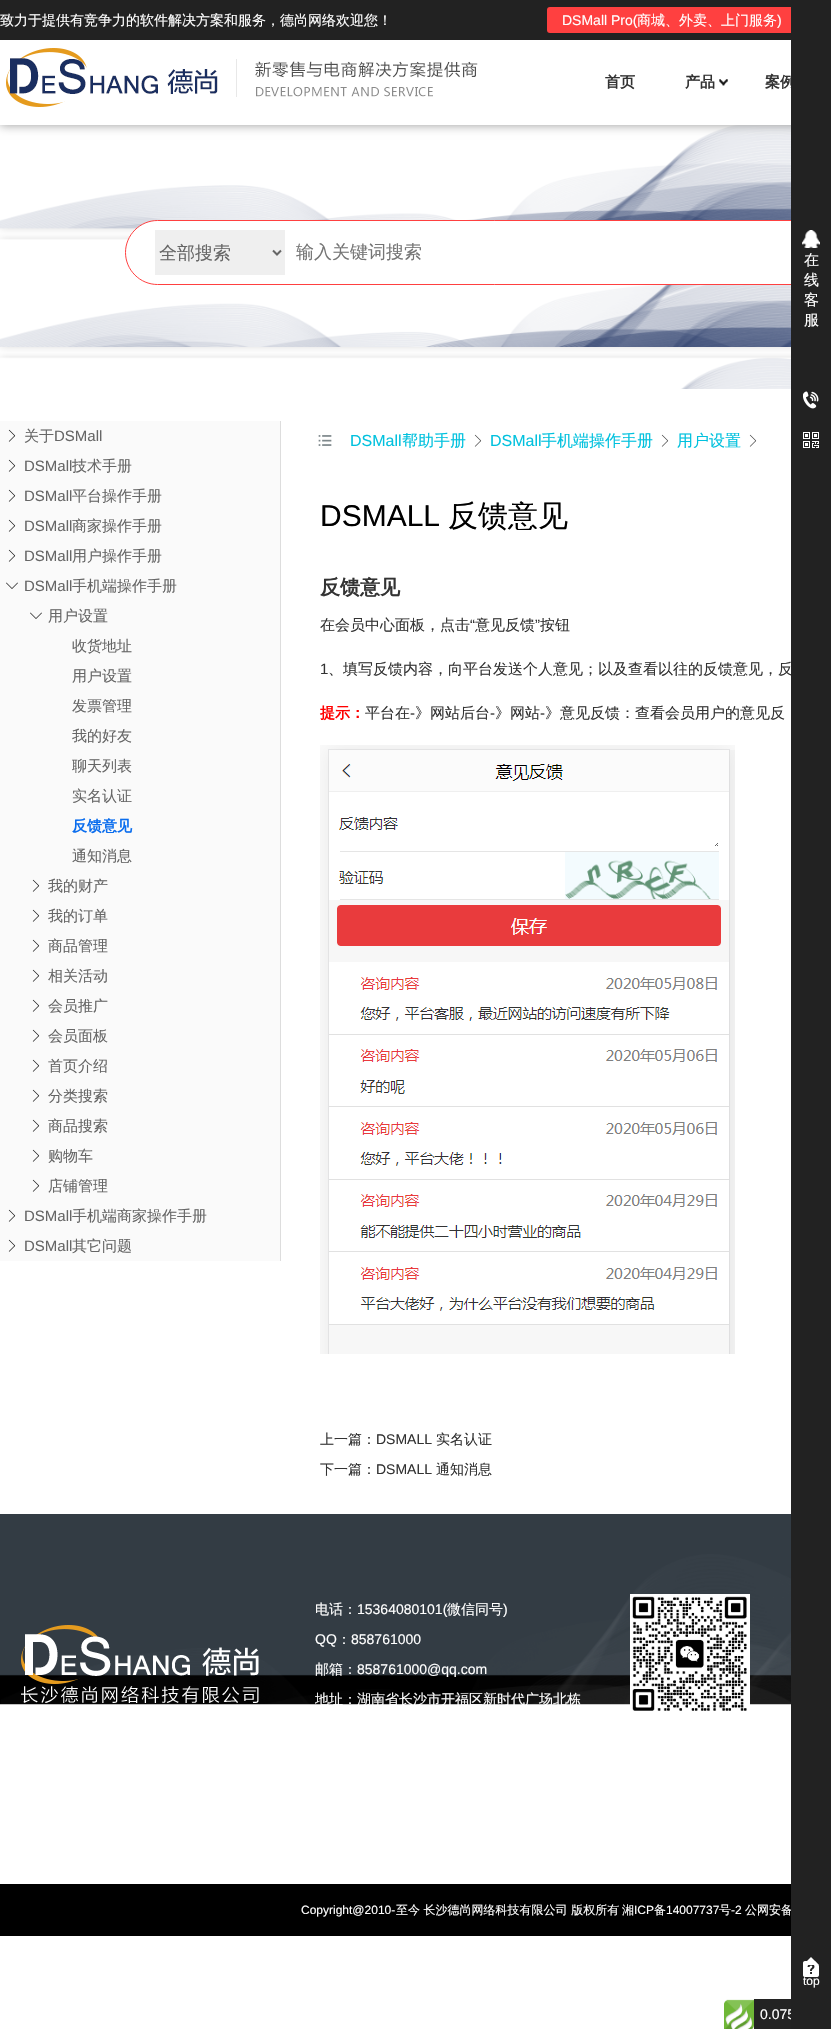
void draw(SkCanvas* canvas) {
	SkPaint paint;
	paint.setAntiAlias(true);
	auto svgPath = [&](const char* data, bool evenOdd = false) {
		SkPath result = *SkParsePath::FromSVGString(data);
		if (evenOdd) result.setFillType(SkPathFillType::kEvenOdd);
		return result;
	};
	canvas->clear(0xffffffff);
	canvas->drawImageRect(SkImages::DeferredFromEncodedData(SkData::MakeFromFileName("img3.png")), SkRect::MakeXYWH(0, 125, 791, 264), SkSamplingOptions());
	paint.setColor(0xff999999);
	paint.setMaskFilter(SkMaskFilter::MakeBlur(kNormal_SkBlurStyle, 5));
	canvas->drawRect(SkRect::MakeXYWH(0, 40, 831, 85), paint);
	paint.setMaskFilter(nullptr);
	paint.setColor(0xff222222);
	canvas->drawRect(SkRect::MakeXYWH(0, 0, 791, 40), paint);
	SkFont f1(fontMgr->matchFamilyStyle("WenQuanYi Zen Hei", SkFontStyle(500, SkFontStyle::kNormal_Width, SkFontStyle::kUpright_Slant)), 14);
	f1.setSubpixel(true);
	paint.setColor(0xffffffff);
	canvas->drawString("致力于提供有竞争力的软件解决方案和服务，德尚网络欢迎您！", 0, 25, f1, paint);
	paint.setColor(0xffff4040);
	canvas->drawRoundRect(SkRect::MakeXYWH(547, 7, 250, 26), 3, 3, paint);
	SkFont f2(fontMgr->matchFamilyStyle("Liberation Sans", SkFontStyle::Normal()), 14);
	f2.setSubpixel(true);
	paint.setColor(0xffffffff);
	canvas->drawString("DSMall Pro(", 562, 25, f2, paint);
	canvas->drawString("商城、外卖、上门服务", 637, 25, f1, paint);
	canvas->drawString(")", 777, 25, f2, paint);
	canvas->drawRect(SkRect::MakeXYWH(0, 40, 791, 85), paint);
	canvas->drawImageRect(SkImages::DeferredFromEncodedData(SkData::MakeFromFileName("img1.png")), SkRect::MakeXYWH(6, 48, 472, 59), SkSamplingOptions());
	SkFont f3(fontMgr->matchFamilyStyle("WenQuanYi Zen Hei", SkFontStyle::Bold()), 15);
	f3.setSubpixel(true);
	paint.setColor(0xff333333);
	canvas->drawString("首页", 605, 87, f3, paint);
	canvas->drawString("产品", 685, 87, f3, paint);
	canvas->drawImageRect(SkImages::DeferredFromEncodedData(SkData::MakeFromFileName("img2.png")), SkRect::MakeXYWH(719, 79, 9, 7), SkSamplingOptions());
	canvas->drawString("案例", 765, 87, f3, paint);
	paint.setColor(0xffffffff);
	canvas->drawPath(svgPath("M157.5 220.5H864.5V284.5H157.5C140 284.5 125.5 270 125.5 252.5C125.5 235 140 220.5 157.5 220.5Z"), paint);
	paint.setStroke(true);
	paint.setStrokeWidth(1);
	paint.setColor(0xffff4040);
	canvas->drawPath(svgPath("M157.5 220.5H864.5V284.5H157.5C140 284.5 125.5 270 125.5 252.5C125.5 235 140 220.5 157.5 220.5Z"), paint);
	paint.setStroke(false);
	paint.setColor(0xffefefef);
	canvas->drawRect(SkRect::MakeXYWH(155, 230, 130, 45), paint);
	paint.setStroke(true);
	paint.setStrokeWidth(2);
	paint.setColor(0xff666666);
	canvas->drawPath(svgPath("M273 250.5L277 254.5L281 250.5"), paint);
	SkFont f4(fontMgr->matchFamilyStyle("WenQuanYi Zen Hei", SkFontStyle(500, SkFontStyle::kNormal_Width, SkFontStyle::kUpright_Slant)), 18);
	f4.setSubpixel(true);
	paint.setStroke(false);
	canvas->drawString("全部搜索", 159, 259, f4, paint);
	paint.setColor(0xff757575);
	canvas->drawString("输入关键词搜索", 296, 258, f4, paint);
	SkFont f5(fontMgr->matchFamilyStyle("WenQuanYi Zen Hei", SkFontStyle(500, SkFontStyle::kNormal_Width, SkFontStyle::kUpright_Slant)), 15);
	f5.setSubpixel(true);
	paint.setColor(0xff333333);
	canvas->drawString("、填写反馈内容，向平台发送个人意见；以及查看以往的反馈意见，反", 328, 674, f5, paint);
	paint.setColor(0xff000000);
	canvas->drawRect(SkRect::MakeXYWH(0, 1884, 791, 52), paint);
	SkFont f6(fontMgr->matchFamilyStyle("WenQuanYi Zen Hei", SkFontStyle(500, SkFontStyle::kNormal_Width, SkFontStyle::kUpright_Slant)), 12);
	f6.setSubpixel(true);
	paint.setColor(0xffffffff);
	canvas->drawString("公网安备", 745, 1914, f6, paint);
	paint.setColor(0xff232323);
	canvas->drawRect(SkRect::MakeXYWH(754, 1999, 37, 30), paint);
	paint.setColor(0xffffffff);
	canvas->drawString("0.075", 760, 2019, f2, paint);
	paint.setColor(0xff222222);
	canvas->drawRect(SkRect::MakeXYWH(791, 0, 40, 2029), paint);
	canvas->drawImageRect(SkImages::DeferredFromEncodedData(SkData::MakeFromFileName("img4.png")), SkRect::MakeXYWH(802, 230, 18, 18), SkSamplingOptions());
	paint.setColor(0xffffffff);
	canvas->drawString("在", 804, 265, f5, paint);
	canvas->drawString("线", 804, 285, f5, paint);
	canvas->drawString("客", 804, 305, f5, paint);
	canvas->drawString("服", 804, 325, f5, paint);
	canvas->drawImageRect(SkImages::DeferredFromEncodedData(SkData::MakeFromFileName("img5.png")), SkRect::MakeXYWH(803, 391, 16, 18), SkSamplingOptions());
	canvas->drawImageRect(SkImages::DeferredFromEncodedData(SkData::MakeFromFileName("img6.png")), SkRect::MakeXYWH(803, 432, 16, 16), SkSamplingOptions());
	canvas->drawImageRect(SkImages::DeferredFromEncodedData(SkData::MakeFromFileName("img7.png")), SkRect::MakeXYWH(803, 1961, 16, 16), SkSamplingOptions());
	canvas->drawPath(svgPath("M819 1965H803L811 1957Z"), paint);
	SkFont f7(fontMgr->matchFamilyStyle("Liberation Sans", SkFontStyle::Normal()), 12);
	f7.setSubpixel(true);
	canvas->drawString("top", 803, 1985, f7, paint);
	paint.setColor(0xfffafafa);
	canvas->drawRect(SkRect::MakeXYWH(0, 421, 280, 840), paint);
	paint.setColor(0xffdddddd);
	canvas->drawRect(SkRect::MakeXYWH(280, 421, 1, 840), paint);
	canvas->drawImageRect(SkImages::DeferredFromEncodedData(SkData::MakeFromFileName("img8.png")), SkRect::MakeXYWH(8, 429, 8, 13), SkSamplingOptions());
	paint.setColor(0xff666666);
	canvas->drawString("关于", 24, 441, f5, paint);
	SkFont f8(fontMgr->matchFamilyStyle("Liberation Sans", SkFontStyle::Normal()), 15);
	f8.setSubpixel(true);
	canvas->drawString("DSMall", 54, 441, f8, paint);
	canvas->drawImageRect(SkImages::DeferredFromEncodedData(SkData::MakeFromFileName("img8.png")), SkRect::MakeXYWH(8, 459, 8, 13), SkSamplingOptions());
	canvas->drawString("DSMall", 24, 471, f8, paint);
	canvas->drawString("技术手册", 72, 471, f5, paint);
	canvas->drawImageRect(SkImages::DeferredFromEncodedData(SkData::MakeFromFileName("img8.png")), SkRect::MakeXYWH(8, 489, 8, 13), SkSamplingOptions());
	canvas->drawString("DSMall", 24, 501, f8, paint);
	canvas->drawString("平台操作手册", 72, 501, f5, paint);
	canvas->drawImageRect(SkImages::DeferredFromEncodedData(SkData::MakeFromFileName("img8.png")), SkRect::MakeXYWH(8, 519, 8, 13), SkSamplingOptions());
	canvas->drawString("DSMall", 24, 531, f8, paint);
	canvas->drawString("商家操作手册", 72, 531, f5, paint);
	canvas->drawImageRect(SkImages::DeferredFromEncodedData(SkData::MakeFromFileName("img8.png")), SkRect::MakeXYWH(8, 549, 8, 13), SkSamplingOptions());
	canvas->drawString("DSMall", 24, 561, f8, paint);
	canvas->drawString("用户操作手册", 72, 561, f5, paint);
	canvas->drawImageRect(SkImages::DeferredFromEncodedData(SkData::MakeFromFileName("img9.png")), SkRect::MakeXYWH(6, 582, 12, 7), SkSamplingOptions());
	canvas->drawString("DSMall", 24, 591, f8, paint);
	canvas->drawString("手机端操作手册", 72, 591, f5, paint);
	canvas->drawImageRect(SkImages::DeferredFromEncodedData(SkData::MakeFromFileName("img9.png")), SkRect::MakeXYWH(30, 612, 12, 7), SkSamplingOptions());
	canvas->drawString("用户设置", 48, 621, f5, paint);
	canvas->drawString("收货地址", 72, 651, f5, paint);
	canvas->drawString("用户设置", 72, 681, f5, paint);
	canvas->drawString("发票管理", 72, 711, f5, paint);
	canvas->drawString("我的好友", 72, 741, f5, paint);
	canvas->drawString("聊天列表", 72, 771, f5, paint);
	canvas->drawString("实名认证", 72, 801, f5, paint);
	paint.setColor(0xff0a6dee);
	canvas->drawString("反馈意见", 72, 831, f3, paint);
	paint.setColor(0xff666666);
	canvas->drawString("通知消息", 72, 861, f5, paint);
	canvas->drawImageRect(SkImages::DeferredFromEncodedData(SkData::MakeFromFileName("img8.png")), SkRect::MakeXYWH(32, 879, 8, 13), SkSamplingOptions());
	canvas->drawString("我的财产", 48, 891, f5, paint);
	canvas->drawImageRect(SkImages::DeferredFromEncodedData(SkData::MakeFromFileName("img8.png")), SkRect::MakeXYWH(32, 909, 8, 13), SkSamplingOptions());
	canvas->drawString("我的订单", 48, 921, f5, paint);
	canvas->drawImageRect(SkImages::DeferredFromEncodedData(SkData::MakeFromFileName("img8.png")), SkRect::MakeXYWH(32, 939, 8, 13), SkSamplingOptions());
	canvas->drawString("商品管理", 48, 951, f5, paint);
	canvas->drawImageRect(SkImages::DeferredFromEncodedData(SkData::MakeFromFileName("img8.png")), SkRect::MakeXYWH(32, 969, 8, 13), SkSamplingOptions());
	canvas->drawString("相关活动", 48, 981, f5, paint);
	canvas->drawImageRect(SkImages::DeferredFromEncodedData(SkData::MakeFromFileName("img8.png")), SkRect::MakeXYWH(32, 999, 8, 13), SkSamplingOptions());
	canvas->drawString("会员推广", 48, 1011, f5, paint);
	canvas->drawImageRect(SkImages::DeferredFromEncodedData(SkData::MakeFromFileName("img8.png")), SkRect::MakeXYWH(32, 1029, 8, 13), SkSamplingOptions());
	canvas->drawString("会员面板", 48, 1041, f5, paint);
	canvas->drawImageRect(SkImages::DeferredFromEncodedData(SkData::MakeFromFileName("img8.png")), SkRect::MakeXYWH(32, 1059, 8, 13), SkSamplingOptions());
	canvas->drawString("首页介绍", 48, 1071, f5, paint);
	canvas->drawImageRect(SkImages::DeferredFromEncodedData(SkData::MakeFromFileName("img8.png")), SkRect::MakeXYWH(32, 1089, 8, 13), SkSamplingOptions());
	canvas->drawString("分类搜索", 48, 1101, f5, paint);
	canvas->drawImageRect(SkImages::DeferredFromEncodedData(SkData::MakeFromFileName("img8.png")), SkRect::MakeXYWH(32, 1119, 8, 13), SkSamplingOptions());
	canvas->drawString("商品搜索", 48, 1131, f5, paint);
	canvas->drawImageRect(SkImages::DeferredFromEncodedData(SkData::MakeFromFileName("img8.png")), SkRect::MakeXYWH(32, 1149, 8, 13), SkSamplingOptions());
	canvas->drawString("购物车", 48, 1161, f5, paint);
	canvas->drawImageRect(SkImages::DeferredFromEncodedData(SkData::MakeFromFileName("img8.png")), SkRect::MakeXYWH(32, 1179, 8, 13), SkSamplingOptions());
	canvas->drawString("店铺管理", 48, 1191, f5, paint);
	canvas->drawImageRect(SkImages::DeferredFromEncodedData(SkData::MakeFromFileName("img8.png")), SkRect::MakeXYWH(8, 1209, 8, 13), SkSamplingOptions());
	canvas->drawString("DSMall", 24, 1221, f8, paint);
	canvas->drawString("手机端商家操作手册", 72, 1221, f5, paint);
	canvas->drawImageRect(SkImages::DeferredFromEncodedData(SkData::MakeFromFileName("img8.png")), SkRect::MakeXYWH(8, 1239, 8, 13), SkSamplingOptions());
	canvas->drawString("DSMall", 24, 1251, f8, paint);
	canvas->drawString("其它问题", 72, 1251, f5, paint);
	canvas->drawImageRect(SkImages::DeferredFromEncodedData(SkData::MakeFromFileName("img10.png")), SkRect::MakeXYWH(318, 435, 14, 11), SkSamplingOptions());
	SkFont f9(fontMgr->matchFamilyStyle("Liberation Sans", SkFontStyle::Normal()), 16);
	f9.setSubpixel(true);
	paint.setColor(0xff00c1de);
	canvas->drawString("DSMall", 350, 446, f9, paint);
	SkFont f10(fontMgr->matchFamilyStyle("WenQuanYi Zen Hei", SkFontStyle(500, SkFontStyle::kNormal_Width, SkFontStyle::kUpright_Slant)), 16);
	f10.setSubpixel(true);
	canvas->drawString("帮助手册", 402, 446, f10, paint);
	canvas->drawImageRect(SkImages::DeferredFromEncodedData(SkData::MakeFromFileName("img11.png")), SkRect::MakeXYWH(474, 434, 8, 13), SkSamplingOptions());
	canvas->drawString("DSMall", 490, 446, f9, paint);
	canvas->drawString("手机端操作手册", 541, 446, f10, paint);
	canvas->drawImageRect(SkImages::DeferredFromEncodedData(SkData::MakeFromFileName("img11.png")), SkRect::MakeXYWH(661, 434, 8, 13), SkSamplingOptions());
	canvas->drawString("用户设置", 677, 446, f10, paint);
	canvas->drawImageRect(SkImages::DeferredFromEncodedData(SkData::MakeFromFileName("img11.png")), SkRect::MakeXYWH(749, 434, 8, 13), SkSamplingOptions());
	SkFont f11(fontMgr->matchFamilyStyle("Liberation Sans", SkFontStyle::Normal()), 30);
	f11.setSubpixel(true);
	paint.setColor(0xff000000);
	canvas->drawString("DSMALL", 320, 526, f11, paint);
	SkFont f12(fontMgr->matchFamilyStyle("WenQuanYi Zen Hei", SkFontStyle(500, SkFontStyle::kNormal_Width, SkFontStyle::kUpright_Slant)), 30);
	f12.setSubpixel(true);
	canvas->drawString("反馈意见", 448, 526, f12, paint);
	SkFont f13(fontMgr->matchFamilyStyle("WenQuanYi Zen Hei", SkFontStyle::Bold()), 20);
	f13.setSubpixel(true);
	paint.setColor(0xff333333);
	canvas->drawString("反馈意见", 320, 594, f13, paint);
	canvas->drawString("在会员中心面板，点击", 320, 630, f5, paint);
	canvas->drawString("“", 470, 630, f8, paint);
	canvas->drawString("意见反馈", 475, 630, f5, paint);
	canvas->drawString("”", 535, 630, f8, paint);
	canvas->drawString("按钮", 540, 630, f5, paint);
	canvas->drawString("1", 320, 674, f8, paint);
	paint.setColor(0xffff0000);
	canvas->drawString("提示：", 320, 718, f3, paint);
	paint.setColor(0xff333333);
	canvas->drawString("平台在", 365, 718, f5, paint);
	canvas->drawString("-", 410, 718, f8, paint);
	canvas->drawString("》网站后台", 415, 718, f5, paint);
	canvas->drawString("-", 490, 718, f8, paint);
	canvas->drawString("》网站", 495, 718, f5, paint);
	canvas->drawString("-", 540, 718, f8, paint);
	canvas->drawString("》意见反馈：查看会员用户的意见反", 545, 718, f5, paint);
	canvas->drawImageRect(SkImages::DeferredFromEncodedData(SkData::MakeFromFileName("img12.png")), SkRect::MakeXYWH(320, 745, 415, 609), SkSamplingOptions());
	canvas->drawString("上一篇：", 320, 1444, f1, paint);
	canvas->drawString("DSMALL", 376, 1444, f2, paint);
	canvas->drawString("实名认证", 436, 1444, f1, paint);
	canvas->drawString("下一篇：", 320, 1474, f1, paint);
	canvas->drawString("DSMALL", 376, 1474, f2, paint);
	canvas->drawString("通知消息", 436, 1474, f1, paint);
	canvas->drawImageRect(SkImages::DeferredFromEncodedData(SkData::MakeFromFileName("img13.png")), SkRect::MakeXYWH(0, 1514, 791, 191), SkSamplingOptions());
	canvas->drawImageRect(SkImages::DeferredFromEncodedData(SkData::MakeFromFileName("img14.png")), SkRect::MakeXYWH(21, 1625, 238, 78), SkSamplingOptions());
	paint.setColor(0xffffffff);
	canvas->drawString("电话：", 315, 1614, f1, paint);
	canvas->drawString("15364080101(", 357, 1614, f2, paint);
	canvas->drawString("微信同号", 447, 1614, f1, paint);
	canvas->drawString(")", 503, 1614, f2, paint);
	canvas->drawString("QQ", 315, 1644, f2, paint);
	canvas->drawString("：", 337, 1644, f1, paint);
	canvas->drawString("858761000", 351, 1644, f2, paint);
	canvas->drawString("邮箱：", 315, 1674, f1, paint);
	canvas->drawString("858761000@qq.com", 357, 1674, f2, paint);
	canvas->drawString("地址：湖南省长沙市开福区新时代广场北栋", 315, 1704, f1, paint);
	canvas->drawRect(SkRect::MakeXYWH(630, 1594, 120, 111), paint);
	canvas->drawImageRect(SkImages::DeferredFromEncodedData(SkData::MakeFromFileName("img15.png")), SkRect::MakeXYWH(632, 1596, 115, 115), SkSamplingOptions());
	canvas->drawString("Copyright@2010-", 301, 1914, f7, paint);
	canvas->drawString("至今 长沙德尚网络科技有限公司 版权所有", 396, 1914, f6, paint);
	canvas->drawString("湘", 622, 1914, f6, paint);
	canvas->drawString("ICP", 634, 1914, f7, paint);
	canvas->drawString("备", 654, 1914, f6, paint);
	canvas->drawString("14007737", 666, 1914, f7, paint);
	canvas->drawString("号", 719, 1914, f6, paint);
	canvas->drawString("-2", 731, 1914, f7, paint);
	canvas->drawImageRect(SkImages::DeferredFromEncodedData(SkData::MakeFromFileName("img16.png")), SkRect::MakeXYWH(724, 1999, 30, 30), SkSamplingOptions());
}
